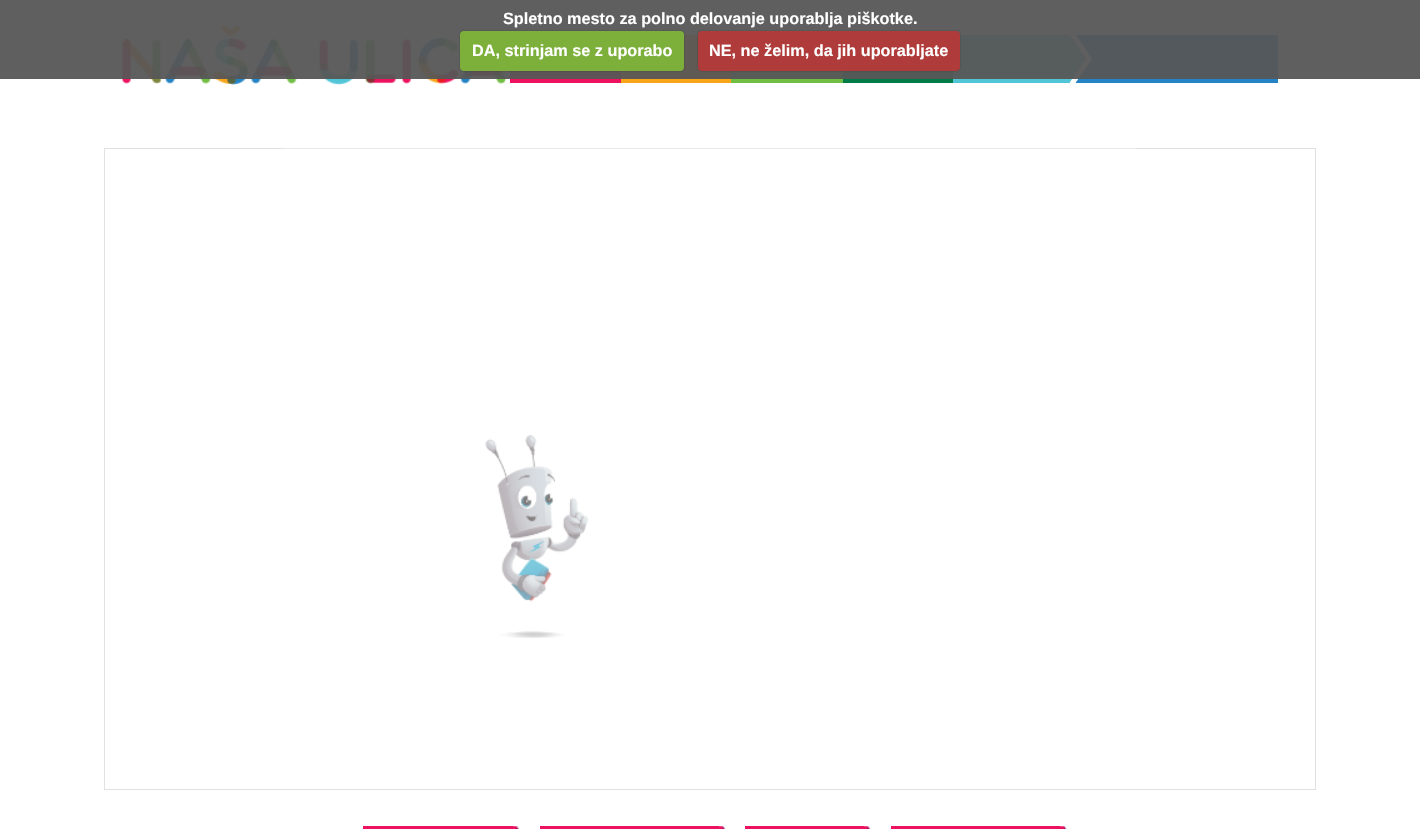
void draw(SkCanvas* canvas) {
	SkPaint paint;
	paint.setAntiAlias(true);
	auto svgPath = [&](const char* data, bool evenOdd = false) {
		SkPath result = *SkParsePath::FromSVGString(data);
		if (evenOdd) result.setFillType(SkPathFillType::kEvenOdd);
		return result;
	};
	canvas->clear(0xffffffff);
	canvas->drawImageRect(SkImages::DeferredFromEncodedData(SkData::MakeFromFileName("img1.png")), SkRect::MakeXYWH(122, 25, 385, 60), SkSamplingOptions());
	paint.setColor(0xffec125f);
	canvas->drawRect(SkRect::MakeXYWH(510, 71, 111, 12), paint);
	paint.setColor(0xfff9a51a);
	canvas->drawRect(SkRect::MakeXYWH(621, 35, 110, 48), paint);
	paint.setColor(0xff72be44);
	canvas->drawRect(SkRect::MakeXYWH(731, 71, 112, 12), paint);
	paint.setColor(0xff017c46);
	canvas->drawRect(SkRect::MakeXYWH(843, 71, 110, 12), paint);
	paint.setColor(0xff52c5d7);
	canvas->drawRect(SkRect::MakeXYWH(953, 35, 117, 48), paint);
	paint.setColor(0xff2483c5);
	canvas->drawRect(SkRect::MakeXYWH(1075, 35, 203, 48), paint);
	paint.setColor(0xffffffff);
	canvas->drawPath(svgPath("M1070 91V26L1092 59Z"), paint);
	paint.setColor(0xff52c5d7);
	canvas->drawPath(svgPath("M1070 82V35L1086 59Z"), paint);
	paint.setColor(0xf2565656);
	canvas->drawRect(SkRect::MakeXYWH(0, 0, 1420, 79), paint);
	SkFont f1(fontMgr->matchFamilyStyle("Liberation Sans", SkFontStyle::Bold()), 16.25);
	f1.setSubpixel(true);
	paint.setColor(0xffffffff);
	canvas->drawString("Spletno mesto za polno delovanje uporablja piškotke.", 503, 24, f1, paint);
	paint.setColor(0x40000000);
	paint.setMaskFilter(SkMaskFilter::MakeBlur(kNormal_SkBlurStyle, 1));
	canvas->drawRoundRect(SkRect::MakeXYWH(460, 31, 224, 40), 4, 4, paint);
	paint.setMaskFilter(nullptr);
	paint.setColor(0xff7daf3b);
	canvas->drawRoundRect(SkRect::MakeXYWH(460, 31, 224, 40), 4, 4, paint);
	paint.setColor(0xffffffff);
	canvas->drawString("DA, strinjam se z uporabo", 472, 56, f1, paint);
	paint.setColor(0x40000000);
	paint.setMaskFilter(SkMaskFilter::MakeBlur(kNormal_SkBlurStyle, 1));
	canvas->drawRoundRect(SkRect::MakeXYWH(698, 31, 262, 40), 4, 4, paint);
	paint.setMaskFilter(nullptr);
	paint.setColor(0xffaf3b3b);
	canvas->drawRoundRect(SkRect::MakeXYWH(698, 31, 262, 40), 4, 4, paint);
	paint.setColor(0xffffffff);
	canvas->drawString("NE, ne želim, da jih uporabljate", 709, 56, f1, paint);
	paint.setStroke(true);
	paint.setStrokeWidth(1);
	paint.setColor(0xffe1e1e1);
	canvas->drawRect(SkRect::MakeXYWH(104.5, 148.5, 1211, 641), paint);
	canvas->drawImageRect(SkImages::DeferredFromEncodedData(SkData::MakeFromFileName("img2.png")), SkRect::MakeXYWH(284, 148, 853, 1), SkSamplingOptions());
	canvas->drawImageRect(SkImages::DeferredFromEncodedData(SkData::MakeFromFileName("img3.png")), SkRect::MakeXYWH(485, 435, 104, 203), SkSamplingOptions());
	paint.setStroke(false);
	paint.setColor(0xffec125f);
	canvas->drawRect(SkRect::MakeXYWH(363, 826, 150, 3), paint);
	canvas->drawImageRect(SkImages::DeferredFromEncodedData(SkData::MakeFromFileName("img4.png")), SkRect::MakeXYWH(513, 826, 7, 3), SkSamplingOptions());
	canvas->drawRect(SkRect::MakeXYWH(540, 826, 179, 3), paint);
	canvas->drawImageRect(SkImages::DeferredFromEncodedData(SkData::MakeFromFileName("img5.png")), SkRect::MakeXYWH(719, 826, 7, 3), SkSamplingOptions());
	canvas->drawRect(SkRect::MakeXYWH(745, 826, 119, 3), paint);
	canvas->drawImageRect(SkImages::DeferredFromEncodedData(SkData::MakeFromFileName("img5.png")), SkRect::MakeXYWH(864, 826, 7, 3), SkSamplingOptions());
	canvas->drawRect(SkRect::MakeXYWH(891, 826, 169, 3), paint);
	canvas->drawImageRect(SkImages::DeferredFromEncodedData(SkData::MakeFromFileName("img6.png")), SkRect::MakeXYWH(1060, 826, 7, 3), SkSamplingOptions());
}
